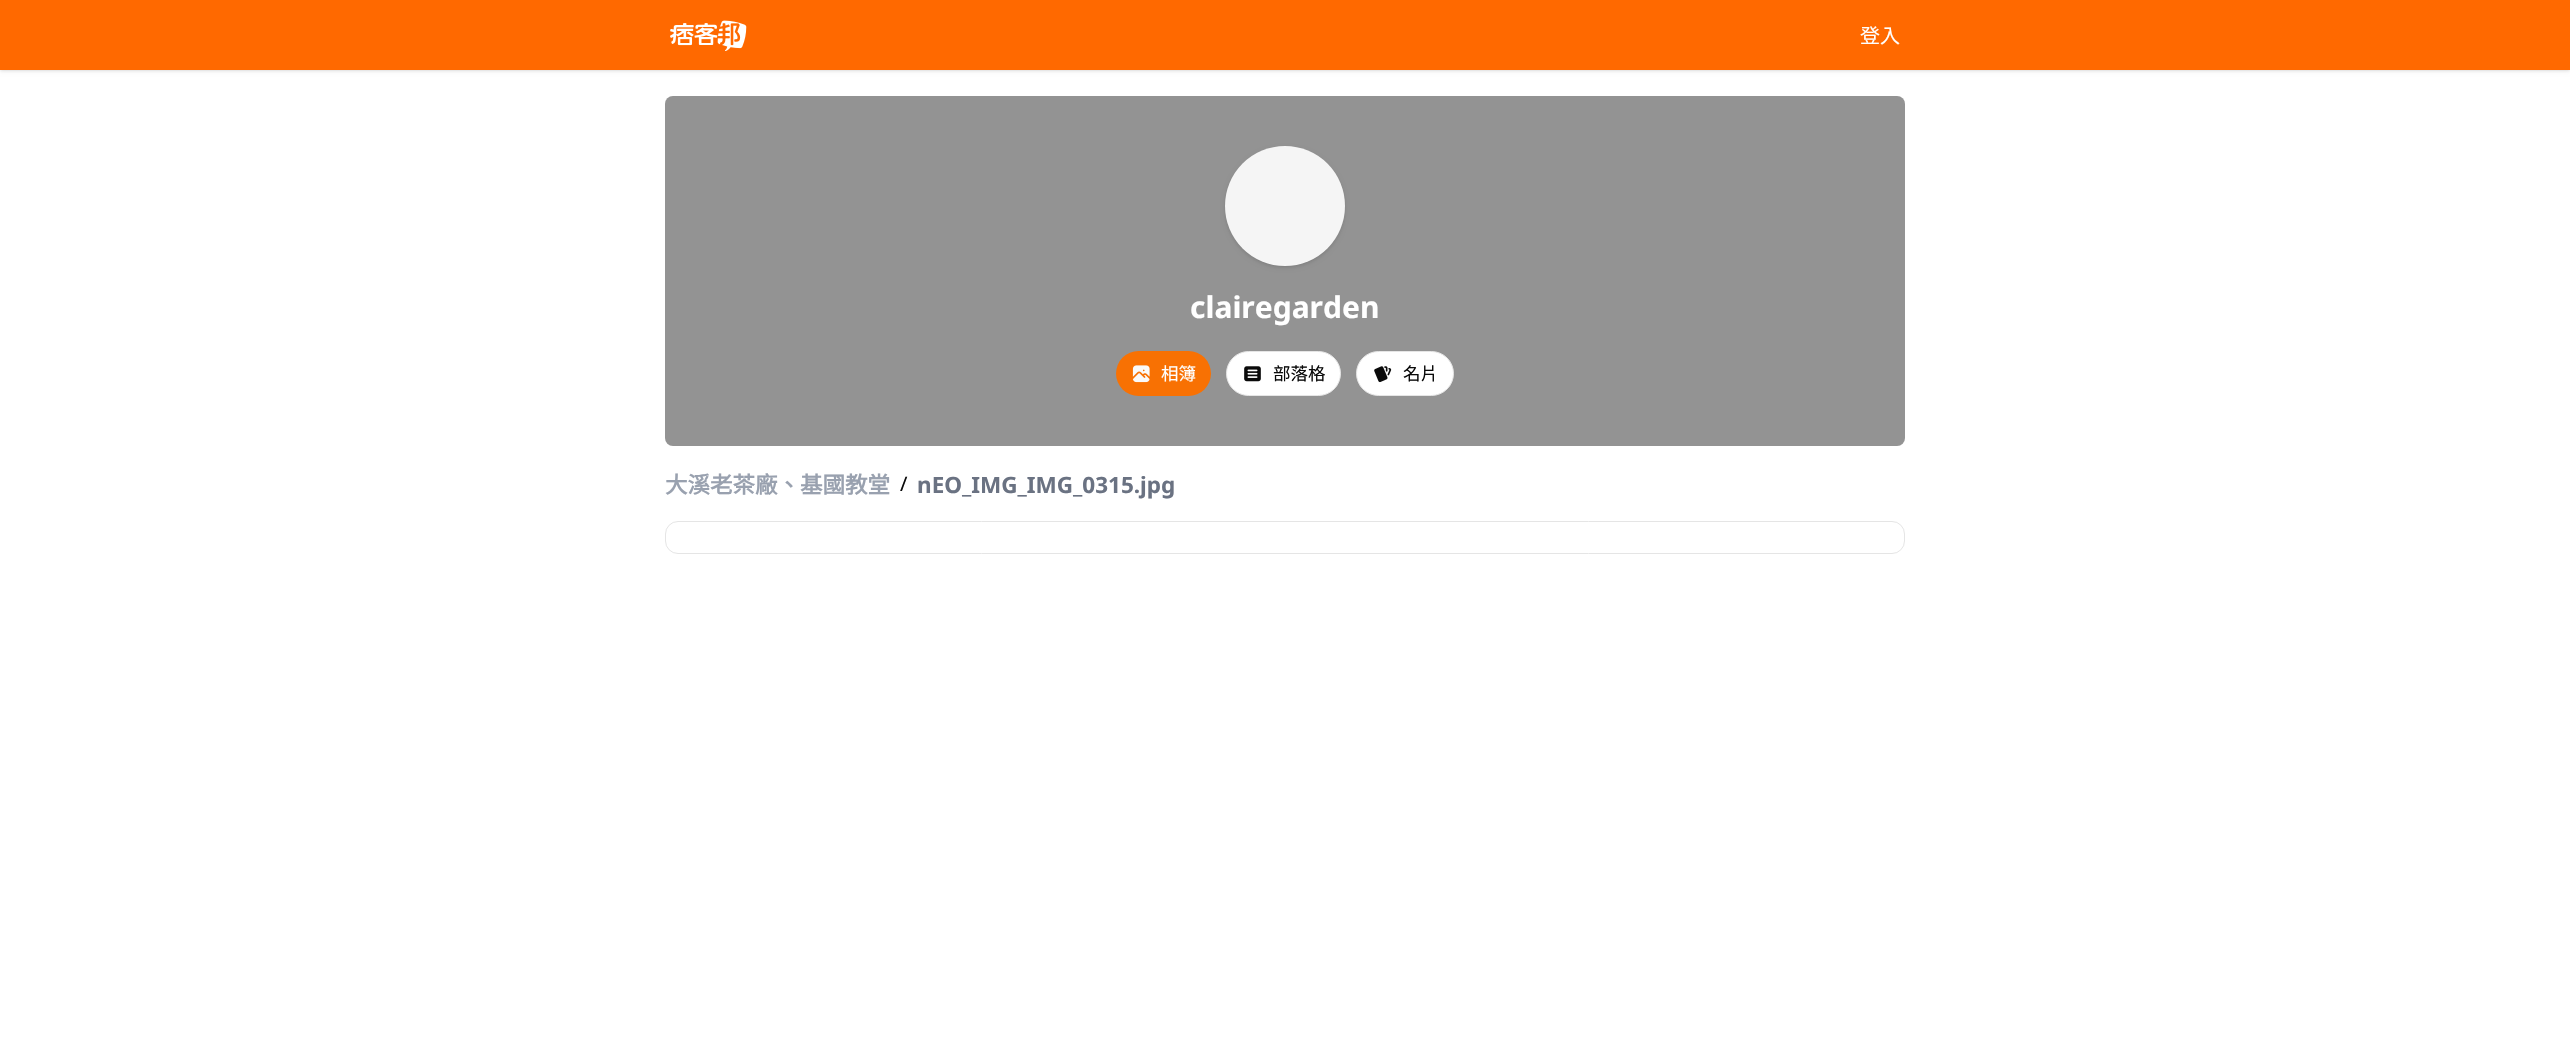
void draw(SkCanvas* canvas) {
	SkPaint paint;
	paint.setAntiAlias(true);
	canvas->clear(0xffffffff);
	paint.setColor(0x1a000000);
	paint.setMaskFilter(SkMaskFilter::MakeBlur(kNormal_SkBlurStyle, 1));
	canvas->drawRect(SkRect::MakeXYWH(1, 3, 2568, 67), paint);
	paint.setMaskFilter(nullptr);
	paint.setMaskFilter(SkMaskFilter::MakeBlur(kNormal_SkBlurStyle, 2));
	canvas->drawRect(SkRect::MakeXYWH(0, 1, 2570, 70), paint);
	paint.setMaskFilter(nullptr);
	paint.setColor(0xffff6900);
	canvas->drawRect(SkRect::MakeXYWH(0, 0, 2570, 70), paint);
	canvas->drawImageRect(SkImages::DeferredFromEncodedData(SkData::MakeFromFileName("img1.png")), SkRect::MakeXYWH(670, 20, 77, 31), SkSamplingOptions());
	SkFont f1(fontMgr->matchFamilyStyle("Noto Sans CJK TC", SkFontStyle::Normal()), 20);
	f1.setSubpixel(true);
	paint.setColor(0xffffffff);
	canvas->drawString("登入", 1860, 43, f1, paint);
	paint.setColor(0xfff5f5f5);
	canvas->drawRoundRect(SkRect::MakeXYWH(665, 96, 1240, 350), 8, 8, paint);
	paint.setColor(0x66000000);
	canvas->drawRoundRect(SkRect::MakeXYWH(665, 96, 1240, 350), 8, 8, paint);
	paint.setColor(0x1a000000);
	paint.setMaskFilter(SkMaskFilter::MakeBlur(kNormal_SkBlurStyle, 1));
	canvas->drawRoundRect(SkRect::MakeXYWH(1226, 149, 118, 117), 58.5, 58.5, paint);
	paint.setMaskFilter(nullptr);
	paint.setMaskFilter(SkMaskFilter::MakeBlur(kNormal_SkBlurStyle, 2));
	canvas->drawRoundRect(SkRect::MakeXYWH(1225, 148, 120, 120), 60, 60, paint);
	paint.setMaskFilter(nullptr);
	paint.setColor(0xfff5f5f5);
	canvas->drawCircle(1285, 206, 60, paint);
	SkFont f2(fontMgr->matchFamilyStyle("Noto Sans", SkFontStyle::Bold()), 30);
	f2.setSubpixel(true);
	paint.setColor(0xffffffff);
	canvas->drawString("clairegarden", 1190, 318, f2, paint);
	paint.setColor(0xfff87103);
	canvas->drawRoundRect(SkRect::MakeXYWH(1116, 351, 95, 45), 22.5, 22.5, paint);
	canvas->drawImageRect(SkImages::DeferredFromEncodedData(SkData::MakeFromFileName("img2.png")), SkRect::MakeXYWH(1132, 365, 18, 18), SkSamplingOptions());
	SkFont f3(fontMgr->matchFamilyStyle("Noto Sans CJK TC", SkFontStyle::Normal()), 17.5);
	f3.setSubpixel(true);
	paint.setColor(0xffffffff);
	canvas->drawString("相簿", 1161, 380, f3, paint);
	canvas->drawRoundRect(SkRect::MakeXYWH(1226.5, 351.5, 114, 44), 22, 22, paint);
	paint.setStroke(true);
	paint.setStrokeWidth(1);
	paint.setColor(0xffe5e5e5);
	canvas->drawRoundRect(SkRect::MakeXYWH(1226.5, 351.5, 114, 44), 22, 22, paint);
	canvas->drawImageRect(SkImages::DeferredFromEncodedData(SkData::MakeFromFileName("img3.png")), SkRect::MakeXYWH(1244, 366, 17, 16), SkSamplingOptions());
	paint.setStroke(false);
	paint.setColor(0xff0a0a0a);
	canvas->drawString("部落格", 1273, 380, f3, paint);
	paint.setColor(0xffffffff);
	canvas->drawRoundRect(SkRect::MakeXYWH(1356.5, 351.5, 97, 44), 22, 22, paint);
	paint.setStroke(true);
	paint.setColor(0xffe5e5e5);
	canvas->drawRoundRect(SkRect::MakeXYWH(1356.5, 351.5, 97, 44), 22, 22, paint);
	canvas->drawImageRect(SkImages::DeferredFromEncodedData(SkData::MakeFromFileName("img4.png")), SkRect::MakeXYWH(1374, 366, 18, 17), SkSamplingOptions());
	paint.setStroke(false);
	paint.setColor(0xff0a0a0a);
	canvas->drawString("名片", 1403, 380, f3, paint);
	SkFont f4(fontMgr->matchFamilyStyle("Noto Sans CJK TC", SkFontStyle::Bold()), 22.5);
	f4.setSubpixel(true);
	paint.setColor(0xff99a1af);
	canvas->drawString("大溪老茶廠、基國教堂", 665, 493, f4, paint);
	SkFont f5(fontMgr->matchFamilyStyle("Noto Sans", SkFontStyle::Normal()), 20);
	f5.setSubpixel(true);
	paint.setColor(0xff0a0a0a);
	canvas->drawString("/", 900, 491, f5, paint);
	SkFont f6(fontMgr->matchFamilyStyle("Noto Sans", SkFontStyle::Bold()), 22.5);
	f6.setSubpixel(true);
	paint.setColor(0xff6a7282);
	canvas->drawString("nEO_IMG_IMG_0315.jpg", 917, 493, f6, paint);
	paint.setStroke(true);
	paint.setColor(0xffe5e5e5);
	canvas->drawRoundRect(SkRect::MakeXYWH(665.5, 521.5, 1239, 32), 12.5, 12.5, paint);
}
